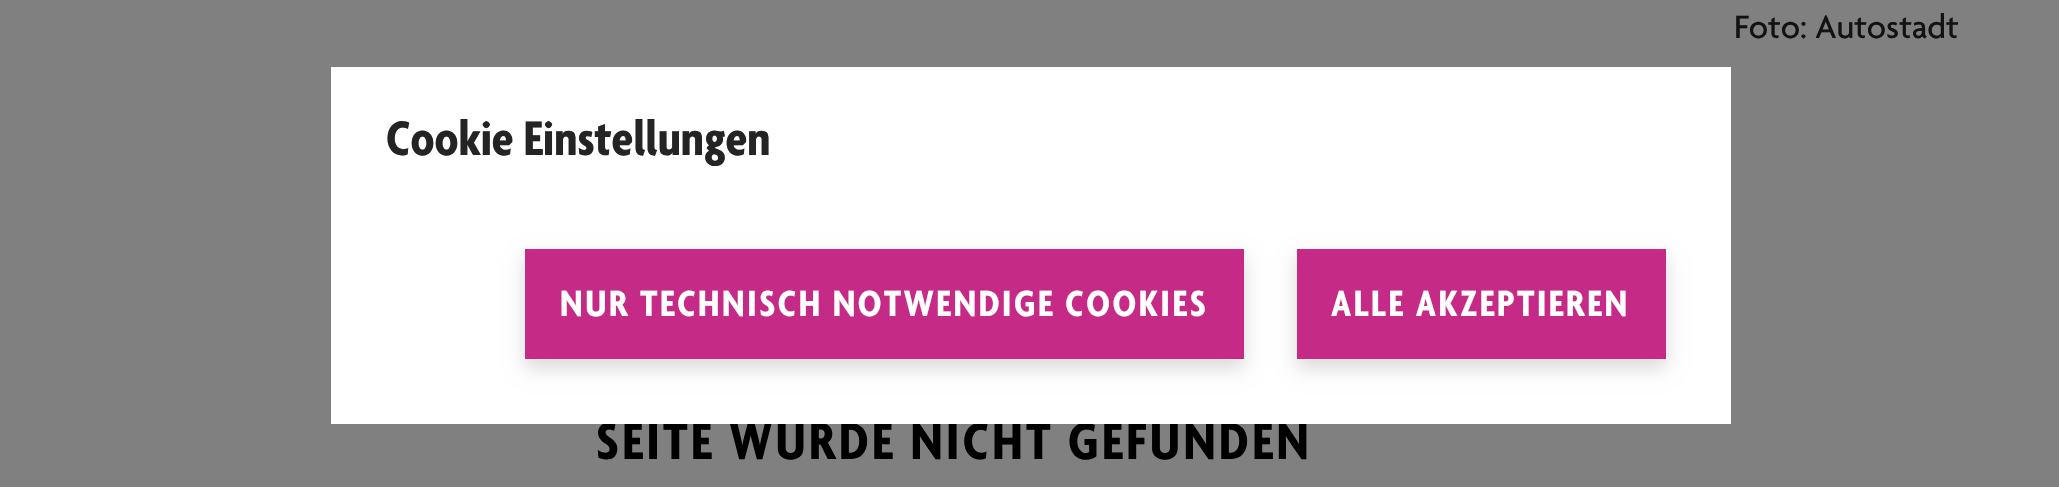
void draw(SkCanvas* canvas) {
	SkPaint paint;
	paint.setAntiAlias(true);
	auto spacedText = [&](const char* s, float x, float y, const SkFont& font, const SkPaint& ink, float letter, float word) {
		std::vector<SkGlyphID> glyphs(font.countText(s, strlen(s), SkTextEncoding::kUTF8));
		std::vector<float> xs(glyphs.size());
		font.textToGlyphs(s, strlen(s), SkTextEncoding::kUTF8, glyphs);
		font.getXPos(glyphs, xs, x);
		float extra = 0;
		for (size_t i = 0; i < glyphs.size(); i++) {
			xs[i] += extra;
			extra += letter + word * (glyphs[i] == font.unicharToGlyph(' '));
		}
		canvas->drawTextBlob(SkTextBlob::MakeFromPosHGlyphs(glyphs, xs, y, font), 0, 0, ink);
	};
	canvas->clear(0xff808080);
	SkFont f1(fontMgr->matchFamilyStyle("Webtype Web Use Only", SkFontStyle(500, SkFontStyle::kNormal_Width, SkFontStyle::kUpright_Slant)), 35);
	f1.setSubpixel(true);
	paint.setColor(0xff121212);
	canvas->drawString("Foto: Autostadt", 1734, 38, f1, paint);
	SkFont f2(fontMgr->matchFamilyStyle("Webtype Web Use Only", SkFontStyle::Bold()), 56);
	f2.setSubpixel(true);
	paint.setColor(0xff000000);
	spacedText("SEITE WURDE NICHT GEFUNDEN", 596, 459, f2, paint, 3.5, 0);
	paint.setColor(0xffffffff);
	canvas->drawRect(SkRect::MakeXYWH(331, 67, 1400, 357), paint);
	SkFont f3(fontMgr->matchFamilyStyle("Webtype Web Use Only", SkFontStyle::Bold()), 52.5);
	f3.setSubpixel(true);
	paint.setColor(0xff242424);
	canvas->drawString("Cookie Einstellungen", 386, 155, f3, paint);
	paint.setColor(0x26000000);
	paint.setMaskFilter(SkMaskFilter::MakeBlur(kNormal_SkBlurStyle, 9));
	canvas->drawRect(SkRect::MakeXYWH(525, 257, 719, 111), paint);
	paint.setMaskFilter(nullptr);
	paint.setColor(0xffc52a87);
	canvas->drawRect(SkRect::MakeXYWH(525, 249, 719, 110), paint);
	SkFont f4(fontMgr->matchFamilyStyle("Webtype Web Use Only", SkFontStyle::Bold()), 39.4);
	f4.setSubpixel(true);
	paint.setColor(0xffffffff);
	spacedText("NUR TECHNISCH NOTWENDIGE COOKIES", 560, 316, f4, paint, 2.6, 0);
	paint.setColor(0x26000000);
	paint.setMaskFilter(SkMaskFilter::MakeBlur(kNormal_SkBlurStyle, 9));
	canvas->drawRect(SkRect::MakeXYWH(1297, 257, 369, 111), paint);
	paint.setMaskFilter(nullptr);
	paint.setColor(0xffc52a87);
	canvas->drawRect(SkRect::MakeXYWH(1297, 249, 369, 110), paint);
	paint.setColor(0xffffffff);
	spacedText("ALLE AKZEPTIEREN", 1331, 316, f4, paint, 2.6, 0);
}
